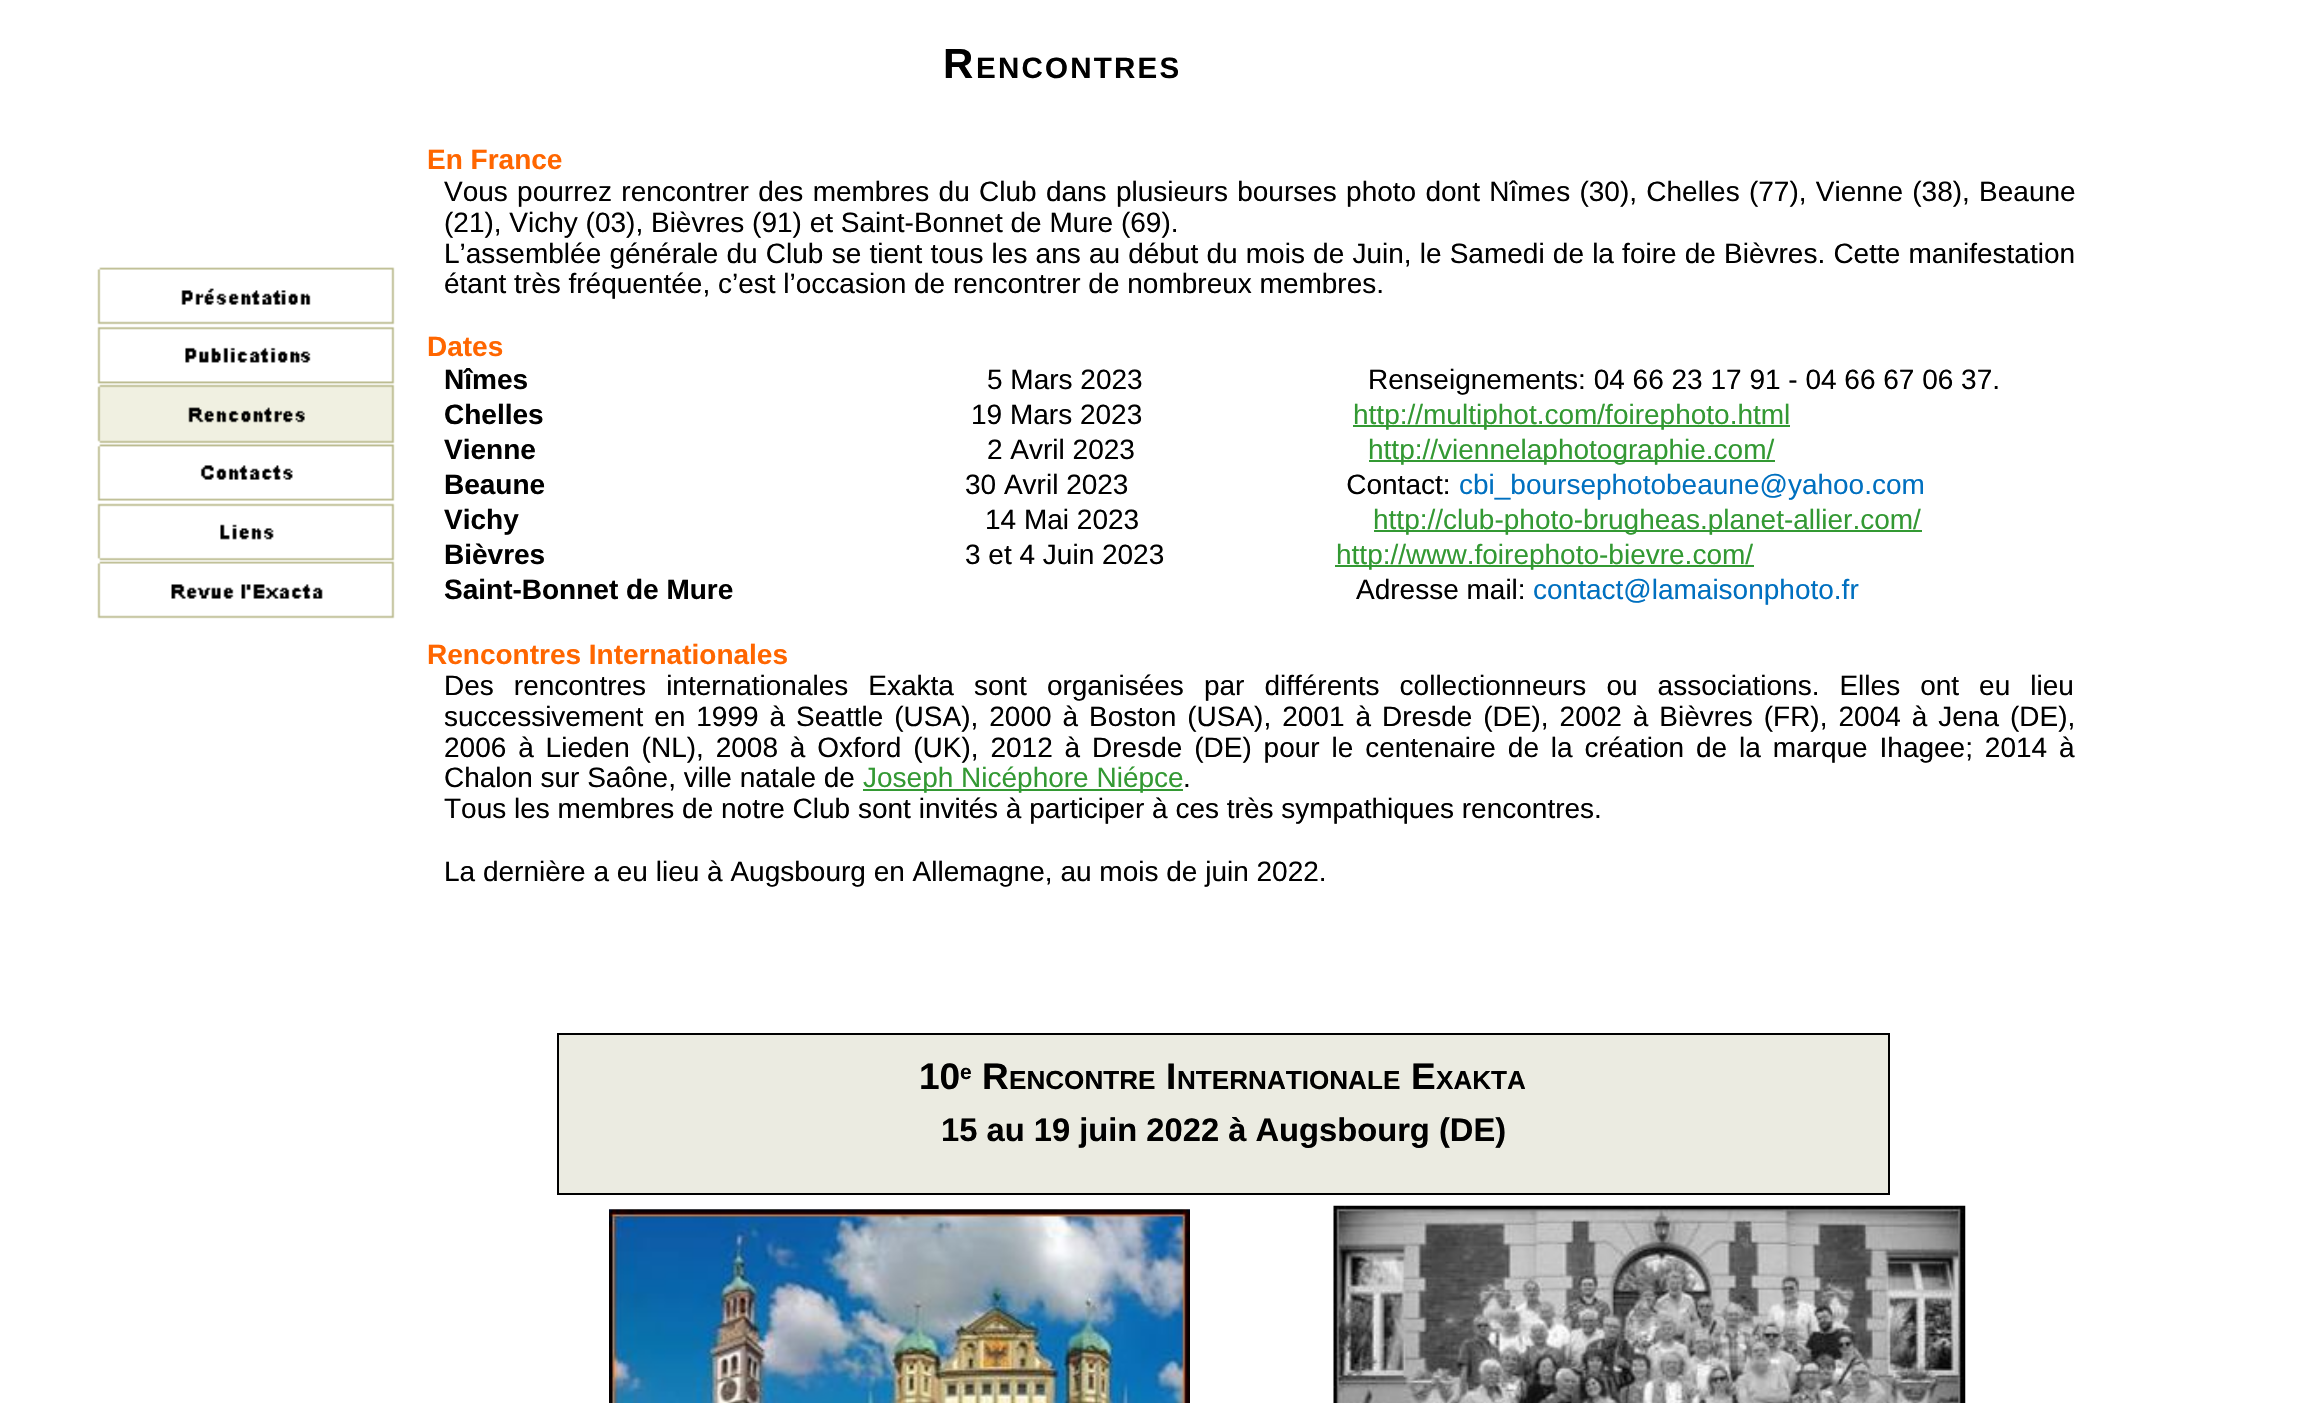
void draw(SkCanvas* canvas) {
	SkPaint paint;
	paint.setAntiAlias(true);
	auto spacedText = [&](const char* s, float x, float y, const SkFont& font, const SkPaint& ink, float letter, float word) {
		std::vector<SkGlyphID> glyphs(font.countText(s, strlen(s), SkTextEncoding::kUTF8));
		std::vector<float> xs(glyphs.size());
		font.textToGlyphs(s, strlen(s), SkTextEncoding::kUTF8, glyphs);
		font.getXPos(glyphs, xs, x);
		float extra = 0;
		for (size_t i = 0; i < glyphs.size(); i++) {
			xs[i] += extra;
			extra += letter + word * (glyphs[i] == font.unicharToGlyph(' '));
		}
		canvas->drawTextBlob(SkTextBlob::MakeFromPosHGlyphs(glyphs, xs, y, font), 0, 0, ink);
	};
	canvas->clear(0xffffffff);
	SkFont f1(fontMgr->matchFamilyStyle("Liberation Sans", SkFontStyle::Bold()), 42);
	f1.setSubpixel(true);
	paint.setColor(0xff000000);
	spacedText("R", 943, 78, f1, paint, 2.25, 0);
	SkFont f2(fontMgr->matchFamilyStyle("Liberation Sans", SkFontStyle::Bold()), 29.5);
	f2.setSubpixel(true);
	spacedText("ENCONTRES", 976, 78, f2, paint, 2.25, 0);
	canvas->drawImageRect(SkImages::DeferredFromEncodedData(SkData::MakeFromFileName("img1.png")), SkRect::MakeXYWH(97, 267, 298, 352), SkSamplingOptions());
	SkFont f3(fontMgr->matchFamilyStyle("Liberation Sans", SkFontStyle::Bold()), 28);
	f3.setSubpixel(true);
	paint.setColor(0xffff6600);
	canvas->drawString("En France", 427, 169, f3, paint);
	SkFont f4(fontMgr->matchFamilyStyle("Liberation Sans", SkFontStyle::Normal()), 28);
	f4.setSubpixel(true);
	paint.setColor(0xff000000);
	spacedText("Vous pourrez rencontrer des membres du Club dans plusieurs bourses photo dont Nîmes (30), Chelles (77), Vienne (38), Beaune", 444, 201, f4, paint, 0, 1.5);
	canvas->drawString("(21), Vichy (03), Bièvres (91) et Saint-Bonnet de Mure (69).", 444, 232, f4, paint);
	spacedText("L’assemblée générale du Club se tient tous les ans au début du mois de Juin, le Samedi de la foire de Bièvres. Cette manifestation", 444, 263, f4, paint, 0, 0.4);
	canvas->drawString("étant très fréquentée, c’est l’occasion de rencontrer de nombreux membres.", 444, 293, f4, paint);
	paint.setColor(0xffff6600);
	canvas->drawString("Dates", 427, 356, f3, paint);
	paint.setColor(0xff000000);
	canvas->drawString("Nîmes", 444, 389, f3, paint);
	canvas->drawString("5 Mars 2023", 987, 389, f4, paint);
	canvas->drawString("Renseignements: 04 66 23 17 91 - 04 66 67 06 37.", 1368, 389, f4, paint);
	canvas->drawString("Chelles", 444, 424, f3, paint);
	canvas->drawString("19 Mars 2023", 971, 424, f4, paint);
	paint.setColor(0xff339933);
	canvas->drawRect(SkRect::MakeXYWH(1353, 425, 437, 2), paint);
	canvas->drawString("http://multiphot.com/foirephoto.html", 1353, 424, f4, paint);
	paint.setColor(0xff000000);
	canvas->drawString("Vienne", 444, 459, f3, paint);
	canvas->drawString("2 Avril 2023", 987, 459, f4, paint);
	paint.setColor(0xff339933);
	canvas->drawRect(SkRect::MakeXYWH(1369, 460, 406, 2), paint);
	canvas->drawString("http://viennelaphotographie.com/", 1368, 459, f4, paint);
	paint.setColor(0xff000000);
	canvas->drawString("Beaune", 444, 494, f3, paint);
	canvas->drawString("30 Avril 2023                            Contact:", 965, 494, f4, paint);
	paint.setColor(0xff0070c0);
	canvas->drawString("cbi_boursephotobeaune@yahoo.com", 1459, 494, f4, paint);
	paint.setColor(0xff000000);
	canvas->drawString("Vichy", 444, 529, f3, paint);
	canvas->drawString("14 Mai 2023", 985, 529, f4, paint);
	paint.setColor(0xff339933);
	canvas->drawRect(SkRect::MakeXYWH(1374, 530, 548, 2), paint);
	canvas->drawString("http://club-photo-brugheas.planet-allier.com/", 1373, 529, f4, paint);
	paint.setColor(0xff000000);
	canvas->drawString("Bièvres", 444, 564, f3, paint);
	canvas->drawString("3 et 4 Juin 2023", 965, 564, f4, paint);
	paint.setColor(0xff339933);
	canvas->drawRect(SkRect::MakeXYWH(1335, 565, 419, 2), paint);
	canvas->drawString("http://www.foirephoto-bievre.com/", 1336, 564, f4, paint);
	paint.setColor(0xff000000);
	canvas->drawString("Saint-Bonnet de Mure", 444, 599, f3, paint);
	canvas->drawString("Adresse mail:", 1356, 599, f4, paint);
	paint.setColor(0xff0070c0);
	canvas->drawString("contact@lamaisonphoto.fr", 1533, 599, f4, paint);
	paint.setColor(0xffff6600);
	canvas->drawString("Rencontres Internationales", 427, 664, f3, paint);
	paint.setColor(0xff000000);
	spacedText("Des rencontres internationales Exakta sont organisées par différents collectionneurs ou associations. Elles ont eu lieu", 444, 695, f4, paint, 0, 12.25);
	spacedText("successivement en 1999 à Seattle (USA), 2000 à Boston (USA), 2001 à Dresde (DE), 2002 à Bièvres (FR), 2004 à Jena (DE),", 444, 726, f4, paint, 0, 3.2);
	spacedText("2006 à Lieden (NL), 2008 à Oxford (UK), 2012 à Dresde (DE) pour le centenaire de la création de la marque Ihagee; 2014 à", 444, 757, f4, paint, 0, 4.1);
	canvas->drawString("Chalon sur Saône, ville natale de", 444, 787, f4, paint);
	paint.setColor(0xff339933);
	canvas->drawRect(SkRect::MakeXYWH(863, 789, 320, 2), paint);
	canvas->drawString("Joseph Nicéphore Niépce", 863, 787, f4, paint);
	paint.setColor(0xff000000);
	canvas->drawString(".", 1183, 787, f4, paint);
	canvas->drawString("Tous les membres de notre Club sont invités à participer à ces très sympathiques rencontres.", 444, 818, f4, paint);
	canvas->drawString("La dernière a eu lieu à Augsbourg en Allemagne, au mois de juin 2022.", 444, 881, f4, paint);
	paint.setColor(0xffebebe1);
	canvas->drawRect(SkRect::MakeXYWH(558, 1034, 1331, 160), paint);
	paint.setStroke(true);
	paint.setStrokeWidth(2);
	paint.setColor(0xff000000);
	canvas->drawRect(SkRect::MakeXYWH(558, 1034, 1331, 160), paint);
	SkFont f5(fontMgr->matchFamilyStyle("Liberation Sans", SkFontStyle::Bold()), 37);
	f5.setSubpixel(true);
	paint.setStroke(false);
	canvas->drawString("10", 919, 1089, f5, paint);
	SkFont f6(fontMgr->matchFamilyStyle("Liberation Sans", SkFontStyle::Bold()), 21);
	f6.setSubpixel(true);
	canvas->drawString("e", 960, 1079, f6, paint);
	canvas->drawString("R", 982, 1089, f5, paint);
	SkFont f7(fontMgr->matchFamilyStyle("Liberation Sans", SkFontStyle::Bold()), 26.1);
	f7.setSubpixel(true);
	canvas->drawString("ENCONTRE", 1009, 1089, f7, paint);
	canvas->drawString("I", 1166, 1089, f5, paint);
	canvas->drawString("NTERNATIONALE", 1177, 1089, f7, paint);
	canvas->drawString("E", 1411, 1089, f5, paint);
	canvas->drawString("XAKTA", 1436, 1089, f7, paint);
	SkFont f8(fontMgr->matchFamilyStyle("Liberation Sans", SkFontStyle::Bold()), 32.7);
	f8.setSubpixel(true);
	canvas->drawString("15 au 19 juin 2022 à Augsbourg (DE)", 941, 1141, f8, paint);
	canvas->drawImageRect(SkImages::DeferredFromEncodedData(SkData::MakeFromFileName("img2.png")), SkRect::MakeXYWH(609, 1209, 581, 194), SkSamplingOptions());
	canvas->drawImageRect(SkImages::DeferredFromEncodedData(SkData::MakeFromFileName("img3.png")), SkRect::MakeXYWH(1333, 1205, 633, 198), SkSamplingOptions());
}
